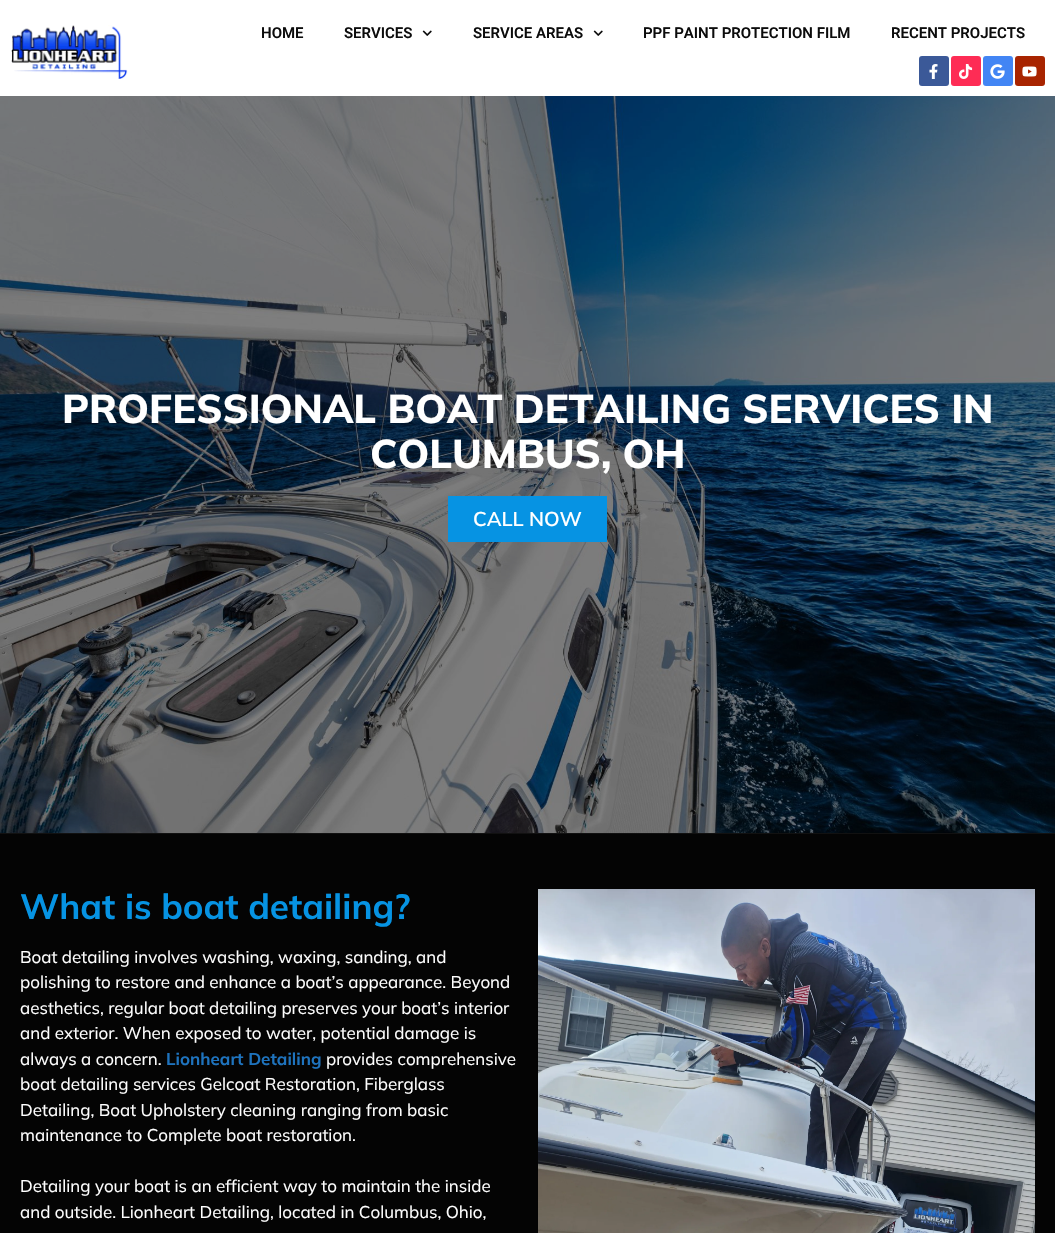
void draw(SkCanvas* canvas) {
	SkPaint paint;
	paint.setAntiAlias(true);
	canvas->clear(0xffffffff);
	canvas->drawImageRect(SkImages::DeferredFromEncodedData(SkData::MakeFromFileName("img1.png")), SkRect::MakeXYWH(11, 25, 117, 54), SkSamplingOptions());
	SkFont f1(fontMgr->matchFamilyStyle("Heebo", SkFontStyle(600, SkFontStyle::kNormal_Width, SkFontStyle::kUpright_Slant)), 15);
	f1.setSubpixel(true);
	paint.setColor(0xff0c0c0c);
	canvas->drawString("HOME", 261, 38, f1, paint);
	canvas->drawString("SERVICES", 344, 38, f1, paint);
	canvas->drawImageRect(SkImages::DeferredFromEncodedData(SkData::MakeFromFileName("img2.png")), SkRect::MakeXYWH(422, 30, 10, 6), SkSamplingOptions());
	canvas->drawString("SERVICE AREAS", 473, 38, f1, paint);
	canvas->drawImageRect(SkImages::DeferredFromEncodedData(SkData::MakeFromFileName("img2.png")), SkRect::MakeXYWH(593, 30, 10, 6), SkSamplingOptions());
	canvas->drawString("PPF PAINT PROTECTION FILM", 643, 38, f1, paint);
	canvas->drawString("RECENT PROJECTS", 891, 38, f1, paint);
	paint.setColor(0xff3b5998);
	canvas->drawRoundRect(SkRect::MakeXYWH(919, 56, 30, 30), 3, 3, paint);
	canvas->drawImageRect(SkImages::DeferredFromEncodedData(SkData::MakeFromFileName("img3.png")), SkRect::MakeXYWH(929, 64, 9, 15), SkSamplingOptions());
	paint.setColor(0xfffe2c55);
	canvas->drawRoundRect(SkRect::MakeXYWH(951, 56, 30, 30), 3, 3, paint);
	canvas->drawImageRect(SkImages::DeferredFromEncodedData(SkData::MakeFromFileName("img4.png")), SkRect::MakeXYWH(959, 64, 14, 15), SkSamplingOptions());
	paint.setColor(0xff4285f4);
	canvas->drawRoundRect(SkRect::MakeXYWH(983, 56, 30, 30), 3, 3, paint);
	canvas->drawImageRect(SkImages::DeferredFromEncodedData(SkData::MakeFromFileName("img5.png")), SkRect::MakeXYWH(990, 64, 15, 15), SkSamplingOptions());
	paint.setColor(0xffa82400);
	canvas->drawRoundRect(SkRect::MakeXYWH(1015, 56, 30, 30), 3, 3, paint);
	canvas->drawImageRect(SkImages::DeferredFromEncodedData(SkData::MakeFromFileName("img6.png")), SkRect::MakeXYWH(1022, 66, 15, 11), SkSamplingOptions());
	canvas->drawImageRect(SkImages::DeferredFromEncodedData(SkData::MakeFromFileName("img7.png")), SkRect::MakeXYWH(0, 96, 1055, 737), SkSamplingOptions());
	SkFont f2(fontMgr->matchFamilyStyle("Mulish", SkFontStyle(800, SkFontStyle::kNormal_Width, SkFontStyle::kUpright_Slant)), 40);
	f2.setSubpixel(true);
	paint.setColor(0xffffffff);
	canvas->drawString("PROFESSIONAL BOAT DETAILING SERVICES IN", 62, 423, f2, paint);
	canvas->drawString("COLUMBUS, OH", 370, 468, f2, paint);
	paint.setColor(0xff0693e3);
	canvas->drawRect(SkRect::MakeXYWH(448, 496, 159, 46), paint);
	SkFont f3(fontMgr->matchFamilyStyle("Mulish", SkFontStyle(600, SkFontStyle::kNormal_Width, SkFontStyle::kUpright_Slant)), 20);
	f3.setSubpixel(true);
	paint.setColor(0xffffffff);
	canvas->drawString("CALL NOW", 473, 526, f3, paint);
	paint.setColor(0xff111111);
	canvas->drawRect(SkRect::MakeXYWH(0, 833, 1055, 1), paint);
	paint.setColor(0xff040404);
	canvas->drawRect(SkRect::MakeXYWH(0, 834, 1055, 399), paint);
	SkFont f4(fontMgr->matchFamilyStyle("Mulish", SkFontStyle::Bold()), 35);
	f4.setSubpixel(true);
	paint.setColor(0xff0693e3);
	canvas->drawString("What is boat detailing?", 20, 919, f4, paint);
	SkFont f5(fontMgr->matchFamilyStyle("Mulish", SkFontStyle::Normal()), 17);
	f5.setSubpixel(true);
	paint.setColor(0xffffffff);
	canvas->drawString("Boat detailing involves washing, waxing, sanding, and", 20, 963, f5, paint);
	canvas->drawString("polishing to restore and enhance a boat’s appearance. Beyond", 20, 988, f5, paint);
	canvas->drawString("aesthetics, regular boat detailing preserves your boat’s interior", 20, 1014, f5, paint);
	canvas->drawString("and exterior. When exposed to water, potential damage is", 20, 1039, f5, paint);
	canvas->drawString("always a concern.", 20, 1065, f5, paint);
	SkFont f6(fontMgr->matchFamilyStyle("Mulish", SkFontStyle::Bold()), 17);
	f6.setSubpixel(true);
	paint.setColor(0xff1e73be);
	canvas->drawString("Lionheart Detailing", 166, 1065, f6, paint);
	paint.setColor(0xffffffff);
	canvas->drawString("provides comprehensive", 326, 1065, f5, paint);
	canvas->drawString("boat detailing services Gelcoat Restoration, Fiberglass", 20, 1090, f5, paint);
	canvas->drawString("Detailing, Boat Upholstery cleaning ranging from basic", 20, 1116, f5, paint);
	canvas->drawString("maintenance to Complete boat restoration.", 20, 1141, f5, paint);
	canvas->drawString("Detailing your boat is an efficient way to maintain the inside", 20, 1192, f5, paint);
	canvas->drawString("and outside. Lionheart Detailing, located in Columbus, Ohio,", 20, 1218, f5, paint);
	canvas->drawImageRect(SkImages::DeferredFromEncodedData(SkData::MakeFromFileName("img8.png")), SkRect::MakeXYWH(538, 889, 497, 344), SkSamplingOptions());
}
